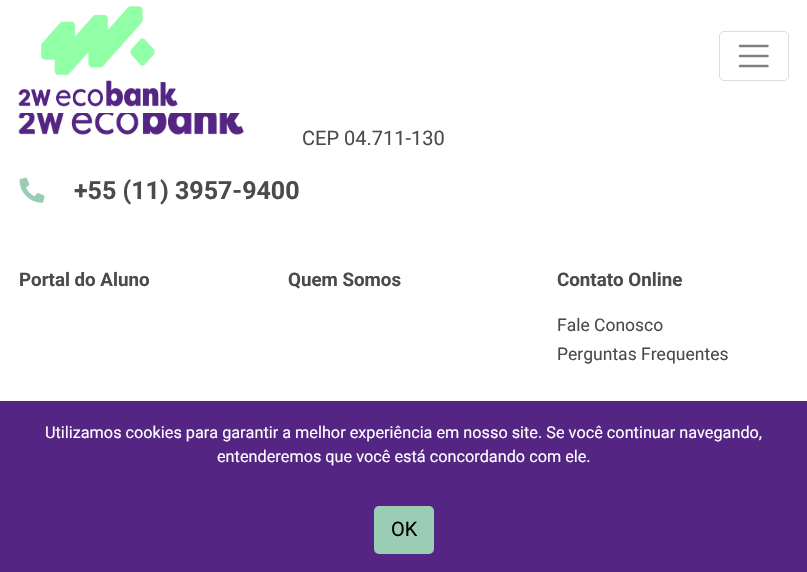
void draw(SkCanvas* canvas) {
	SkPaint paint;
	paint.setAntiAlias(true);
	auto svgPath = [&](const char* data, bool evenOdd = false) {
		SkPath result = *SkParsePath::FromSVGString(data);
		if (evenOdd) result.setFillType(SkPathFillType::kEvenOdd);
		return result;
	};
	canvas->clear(0xffffffff);
	canvas->drawImageRect(SkImages::DeferredFromEncodedData(SkData::MakeFromFileName("img1.png")), SkRect::MakeXYWH(18, 6, 160, 101), SkSamplingOptions());
	paint.setStroke(true);
	paint.setStrokeWidth(1);
	paint.setColor(0xffdddddd);
	canvas->drawRoundRect(SkRect::MakeXYWH(719.5, 31.5, 69, 49), 4.5, 4.5, paint);
	paint.setStrokeWidth(2.5);
	paint.setStrokeCap(SkPaint::kRound_Cap);
	paint.setColor(0xff808080);
	canvas->drawPath(svgPath("M740 46H767.5M740 56H767.5M740 66H767.5"), paint);
	canvas->drawImageRect(SkImages::DeferredFromEncodedData(SkData::MakeFromFileName("img2.png")), SkRect::MakeXYWH(18, 113, 226, 22), SkSamplingOptions());
	SkFont f1(fontMgr->matchFamilyStyle("Roboto", SkFontStyle::Normal()), 20);
	f1.setSubpixel(true);
	paint.setStroke(false);
	paint.setColor(0xff4b4b4b);
	canvas->drawString("CEP 04.711-130", 302, 145, f1, paint);
	canvas->drawImageRect(SkImages::DeferredFromEncodedData(SkData::MakeFromFileName("img3.png")), SkRect::MakeXYWH(19, 177, 26, 26), SkSamplingOptions());
	SkFont f2(fontMgr->matchFamilyStyle("Roboto", SkFontStyle::Bold()), 25);
	f2.setSubpixel(true);
	canvas->drawString("+55 (11) 3957-9400", 74, 199, f2, paint);
	SkFont f3(fontMgr->matchFamilyStyle("Roboto", SkFontStyle::Bold()), 18.75);
	f3.setSubpixel(true);
	canvas->drawString("Portal do Aluno", 19, 286, f3, paint);
	canvas->drawString("Quem Somos", 288, 286, f3, paint);
	canvas->drawString("Contato Online", 557, 286, f3, paint);
	SkFont f4(fontMgr->matchFamilyStyle("Roboto", SkFontStyle::Normal()), 17.5);
	f4.setSubpixel(true);
	canvas->drawString("Fale Conosco", 557, 331, f4, paint);
	canvas->drawString("Perguntas Frequentes", 557, 360, f4, paint);
	paint.setColor(0xff542583);
	canvas->drawRect(SkRect::MakeXYWH(0, 401, 807, 171), paint);
	SkFont f5(fontMgr->matchFamilyStyle("Roboto", SkFontStyle::Normal()), 16.25);
	f5.setSubpixel(true);
	paint.setColor(0xffffffff);
	canvas->drawString("Utilizamos cookies para garantir a melhor experiência em nosso site. Se você continuar navegando,", 45, 438, f5, paint);
	canvas->drawString("entenderemos que você está concordando com ele.", 217, 462, f5, paint);
	paint.setColor(0xff9acdb3);
	canvas->drawRoundRect(SkRect::MakeXYWH(374, 506, 60, 48), 5, 5, paint);
	paint.setColor(0xff000000);
	canvas->drawString("OK", 391, 536, f1, paint);
}
